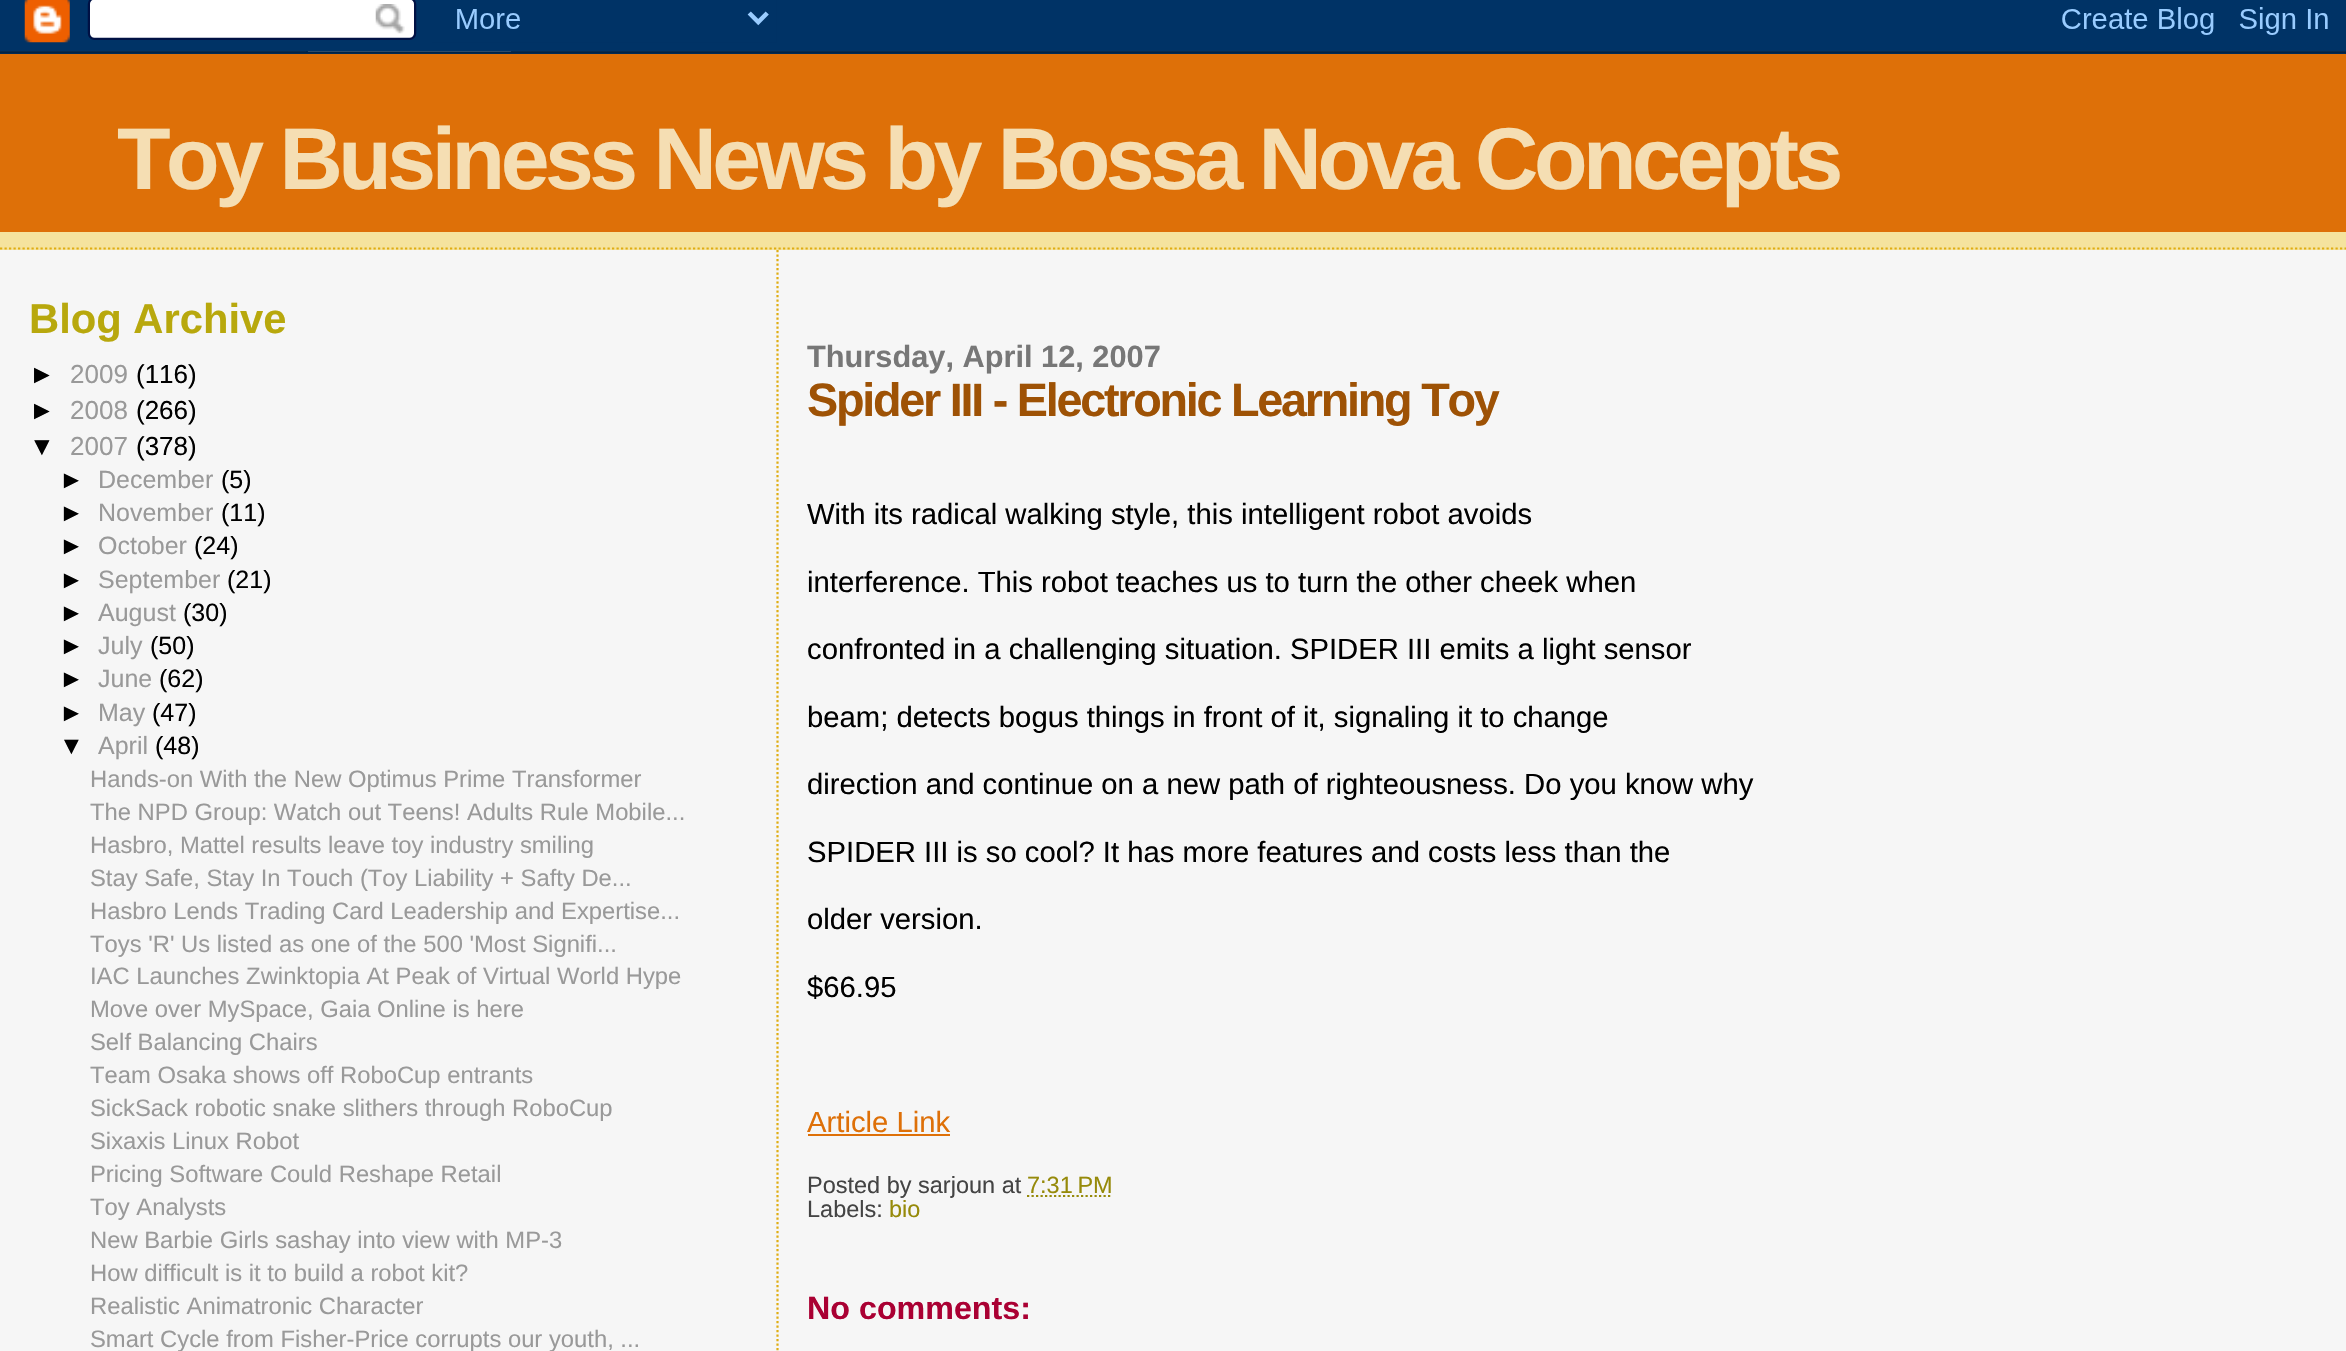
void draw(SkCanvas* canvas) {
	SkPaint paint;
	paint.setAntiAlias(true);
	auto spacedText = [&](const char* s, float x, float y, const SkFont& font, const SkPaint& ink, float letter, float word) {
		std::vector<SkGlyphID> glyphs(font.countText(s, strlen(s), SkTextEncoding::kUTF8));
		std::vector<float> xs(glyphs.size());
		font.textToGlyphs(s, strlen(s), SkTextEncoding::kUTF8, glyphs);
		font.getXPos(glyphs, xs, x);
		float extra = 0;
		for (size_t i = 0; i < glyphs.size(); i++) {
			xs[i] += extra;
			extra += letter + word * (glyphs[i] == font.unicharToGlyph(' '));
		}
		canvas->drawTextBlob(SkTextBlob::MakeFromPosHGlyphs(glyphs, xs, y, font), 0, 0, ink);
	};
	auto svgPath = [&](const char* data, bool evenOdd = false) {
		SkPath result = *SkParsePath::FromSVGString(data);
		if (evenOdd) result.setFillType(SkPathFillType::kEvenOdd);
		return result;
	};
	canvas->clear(0xfff6f6f6);
	canvas->drawImageRect(SkImages::DeferredFromEncodedData(SkData::MakeFromFileName("img1.png")), SkRect::MakeXYWH(0, 0, 2346, 54), SkSamplingOptions());
	paint.setColor(0xfff5e39e);
	canvas->drawRect(SkRect::MakeXYWH(0, 232, 2346, 18), paint);
	paint.setStroke(true);
	paint.setStrokeWidth(2.2);
	paint.setColor(0xffe0ad12);
	paint.setPathEffect(SkDashPathEffect::Make({{2.25f, 2.25f}}, 0));
	canvas->drawPath(svgPath("M0 248.5H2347"), paint);
	paint.setPathEffect(nullptr);
	paint.setStroke(false);
	paint.setColor(0xffde7008);
	canvas->drawRect(SkRect::MakeXYWH(0, 54, 2346, 178), paint);
	SkFont f1(fontMgr->matchFamilyStyle("Liberation Sans", SkFontStyle::Bold()), 87.75);
	f1.setSubpixel(true);
	paint.setColor(0xfff5deb3);
	spacedText("Toy Business News by Bossa Nova Concepts", 117, 189, f1, paint, -4.5, 0);
	SkFont f2(fontMgr->matchFamilyStyle("Liberation Sans", SkFontStyle::Bold()), 41.75);
	f2.setSubpixel(true);
	paint.setColor(0xffb8a80d);
	canvas->drawString("Blog Archive", 29, 333, f2, paint);
	SkFont f3(fontMgr->matchFamilyStyle("Liberation Sans", SkFontStyle::Normal()), 26);
	f3.setSubpixel(true);
	paint.setColor(0xff000000);
	canvas->drawString("►", 29, 383, f3, paint);
	paint.setColor(0xff999999);
	canvas->drawString("2009", 70, 383, f3, paint);
	paint.setColor(0xff000000);
	canvas->drawString("(116)", 136, 383, f3, paint);
	canvas->drawString("►", 29, 419, f3, paint);
	paint.setColor(0xff999999);
	canvas->drawString("2008", 70, 419, f3, paint);
	paint.setColor(0xff000000);
	canvas->drawString("(266)", 136, 419, f3, paint);
	canvas->drawString("▼", 29, 455, f3, paint);
	paint.setColor(0xff999999);
	canvas->drawString("2007", 70, 455, f3, paint);
	paint.setColor(0xff000000);
	canvas->drawString("(378)", 136, 455, f3, paint);
	SkFont f4(fontMgr->matchFamilyStyle("Liberation Sans", SkFontStyle::Normal()), 25);
	f4.setSubpixel(true);
	canvas->drawString("►", 59, 488, f4, paint);
	paint.setColor(0xff999999);
	canvas->drawString("December", 98, 488, f4, paint);
	paint.setColor(0xff000000);
	canvas->drawString("(5)", 221, 488, f4, paint);
	canvas->drawString("►", 59, 521, f4, paint);
	paint.setColor(0xff999999);
	canvas->drawString("November", 98, 521, f4, paint);
	paint.setColor(0xff000000);
	canvas->drawString("(11)", 221, 521, f4, paint);
	canvas->drawString("►", 59, 554, f4, paint);
	paint.setColor(0xff999999);
	canvas->drawString("October", 98, 554, f4, paint);
	paint.setColor(0xff000000);
	canvas->drawString("(24)", 194, 554, f4, paint);
	canvas->drawString("►", 59, 588, f4, paint);
	paint.setColor(0xff999999);
	canvas->drawString("September", 98, 588, f4, paint);
	paint.setColor(0xff000000);
	canvas->drawString("(21)", 227, 588, f4, paint);
	canvas->drawString("►", 59, 621, f4, paint);
	paint.setColor(0xff999999);
	canvas->drawString("August", 98, 621, f4, paint);
	paint.setColor(0xff000000);
	canvas->drawString("(30)", 183, 621, f4, paint);
	canvas->drawString("►", 59, 654, f4, paint);
	paint.setColor(0xff999999);
	canvas->drawString("July", 98, 654, f4, paint);
	paint.setColor(0xff000000);
	canvas->drawString("(50)", 150, 654, f4, paint);
	canvas->drawString("►", 59, 687, f4, paint);
	paint.setColor(0xff999999);
	canvas->drawString("June", 98, 687, f4, paint);
	paint.setColor(0xff000000);
	canvas->drawString("(62)", 159, 687, f4, paint);
	canvas->drawString("►", 59, 721, f4, paint);
	paint.setColor(0xff999999);
	canvas->drawString("May", 98, 721, f4, paint);
	paint.setColor(0xff000000);
	canvas->drawString("(47)", 152, 721, f4, paint);
	canvas->drawString("▼", 59, 754, f4, paint);
	paint.setColor(0xff999999);
	canvas->drawString("April", 98, 754, f4, paint);
	paint.setColor(0xff000000);
	canvas->drawString("(48)", 155, 754, f4, paint);
	SkFont f5(fontMgr->matchFamilyStyle("Liberation Sans", SkFontStyle::Normal()), 23.8);
	f5.setSubpixel(true);
	paint.setColor(0xff999999);
	canvas->drawString("Hands-on With the New Optimus Prime Transformer", 90, 787, f5, paint);
	canvas->drawString("The NPD Group: Watch out Teens! Adults Rule Mobile...", 90, 820, f5, paint);
	canvas->drawString("Hasbro, Mattel results leave toy industry smiling", 90, 853, f5, paint);
	canvas->drawString("Stay Safe, Stay In Touch (Toy Liability + Safty De...", 90, 886, f5, paint);
	canvas->drawString("Hasbro Lends Trading Card Leadership and Expertise...", 90, 919, f5, paint);
	canvas->drawString("Toys 'R' Us listed as one of the 500 'Most Signifi...", 90, 952, f5, paint);
	canvas->drawString("IAC Launches Zwinktopia At Peak of Virtual World Hype", 90, 984, f5, paint);
	canvas->drawString("Move over MySpace, Gaia Online is here", 90, 1017, f5, paint);
	canvas->drawString("Self Balancing Chairs", 90, 1050, f5, paint);
	canvas->drawString("Team Osaka shows off RoboCup entrants", 90, 1083, f5, paint);
	canvas->drawString("SickSack robotic snake slithers through RoboCup", 90, 1116, f5, paint);
	canvas->drawString("Sixaxis Linux Robot", 90, 1149, f5, paint);
	canvas->drawString("Pricing Software Could Reshape Retail", 90, 1182, f5, paint);
	canvas->drawString("Toy Analysts", 90, 1215, f5, paint);
	canvas->drawString("New Barbie Girls sashay into view with MP-3", 90, 1248, f5, paint);
	canvas->drawString("How difficult is it to build a robot kit?", 90, 1281, f5, paint);
	canvas->drawString("Realistic Animatronic Character", 90, 1314, f5, paint);
	canvas->drawString("Smart Cycle from Fisher-Price corrupts our youth, ...", 90, 1347, f5, paint);
	paint.setStroke(true);
	paint.setColor(0xffe0ad12);
	paint.setPathEffect(SkDashPathEffect::Make({{2.25f, 2.25f}}, 0));
	canvas->drawPath(svgPath("M777.5 250V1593"), paint);
	paint.setPathEffect(nullptr);
	SkFont f6(fontMgr->matchFamilyStyle("Liberation Sans", SkFontStyle::Bold()), 30.75);
	f6.setSubpixel(true);
	paint.setStroke(false);
	paint.setColor(0xff777777);
	canvas->drawString("Thursday, April 12, 2007", 807, 367, f6, paint);
	SkFont f7(fontMgr->matchFamilyStyle("Liberation Sans", SkFontStyle::Bold()), 46.75);
	f7.setSubpixel(true);
	paint.setColor(0xff9e5205);
	spacedText("Spider III - Electronic Learning Toy", 807, 416, f7, paint, -2.25, 0);
	SkFont f8(fontMgr->matchFamilyStyle("Liberation Sans", SkFontStyle::Normal()), 29.25);
	f8.setSubpixel(true);
	paint.setColor(0xff000000);
	canvas->drawString("With its radical walking style, this intelligent robot avoids", 807, 524, f8, paint);
	canvas->drawString("interference. This robot teaches us to turn the other cheek when", 807, 592, f8, paint);
	canvas->drawString("confronted in a challenging situation. SPIDER III emits a light sensor", 807, 659, f8, paint);
	canvas->drawString("beam; detects bogus things in front of it, signaling it to change", 807, 727, f8, paint);
	canvas->drawString("direction and continue on a new path of righteousness. Do you know why", 807, 794, f8, paint);
	canvas->drawString("SPIDER III is so cool? It has more features and costs less than the", 807, 862, f8, paint);
	canvas->drawString("older version.", 807, 929, f8, paint);
	canvas->drawString("$66.95", 807, 997, f8, paint);
	paint.setColor(0xffde7008);
	canvas->drawString("Article Link", 807, 1132, f8, paint);
	canvas->drawRect(SkRect::MakeXYWH(808, 1134, 142, 2), paint);
	SkFont f9(fontMgr->matchFamilyStyle("Liberation Sans", SkFontStyle::Normal()), 23.5);
	f9.setSubpixel(true);
	paint.setColor(0xff444444);
	canvas->drawString("Posted by sarjoun at", 807, 1193, f9, paint);
	paint.setColor(0xff968a0a);
	canvas->drawString("7:31 PM", 1027, 1193, f9, paint);
	paint.setStroke(true);
	paint.setPathEffect(SkDashPathEffect::Make({{2.25f, 2.25f}}, 0));
	canvas->drawPath(svgPath("M1027 1196H1112"), paint);
	paint.setPathEffect(nullptr);
	paint.setStroke(false);
	paint.setColor(0xff444444);
	canvas->drawString("Labels:", 807, 1217, f9, paint);
	paint.setColor(0xff968a0a);
	canvas->drawString("bio", 889, 1217, f9, paint);
	SkFont f10(fontMgr->matchFamilyStyle("Liberation Sans", SkFontStyle::Bold()), 32.25);
	f10.setSubpixel(true);
	paint.setColor(0xffaa0033);
	canvas->drawString("No comments:", 807, 1319, f10, paint);
}
